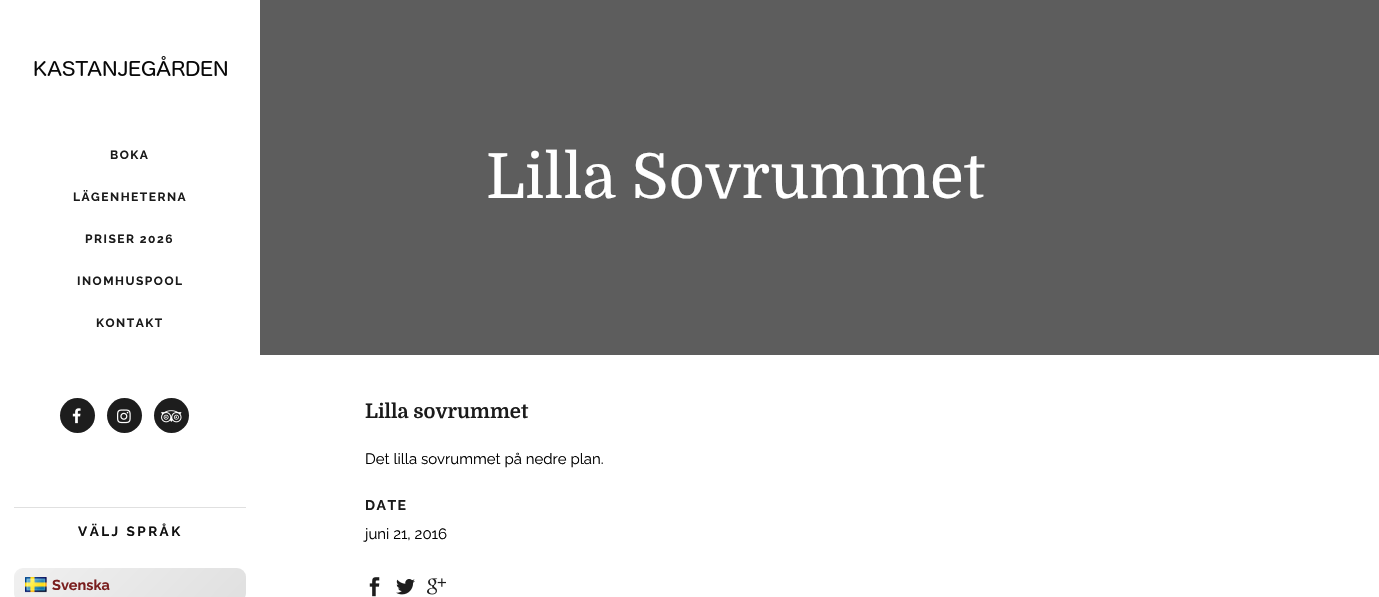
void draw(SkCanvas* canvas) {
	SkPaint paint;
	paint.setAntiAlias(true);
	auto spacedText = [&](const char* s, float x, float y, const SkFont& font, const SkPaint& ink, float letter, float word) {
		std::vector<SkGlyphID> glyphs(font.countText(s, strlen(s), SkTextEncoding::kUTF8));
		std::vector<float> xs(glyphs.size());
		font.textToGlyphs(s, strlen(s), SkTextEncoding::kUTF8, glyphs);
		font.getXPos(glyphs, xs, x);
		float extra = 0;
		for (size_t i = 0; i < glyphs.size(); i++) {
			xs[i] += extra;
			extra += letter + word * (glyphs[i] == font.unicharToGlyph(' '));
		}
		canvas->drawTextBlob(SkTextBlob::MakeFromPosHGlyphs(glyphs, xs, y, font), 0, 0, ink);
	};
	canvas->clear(0xffffffff);
	canvas->drawImageRect(SkImages::DeferredFromEncodedData(SkData::MakeFromFileName("img1.png")), SkRect::MakeXYWH(34, 56, 193, 21), SkSamplingOptions());
	SkFont f1(fontMgr->matchFamilyStyle("Raleway", SkFontStyle::Bold()), 12);
	f1.setSubpixel(true);
	paint.setColor(0xff1b1b1b);
	spacedText("BOKA", 110, 159, f1, paint, 1.5, 0);
	spacedText("LÄGENHETERNA", 73, 201, f1, paint, 1.5, 0);
	spacedText("PRISER 2026", 85, 243, f1, paint, 1.5, 0);
	spacedText("INOMHUSPOOL", 77, 285, f1, paint, 1.5, 0);
	spacedText("KONTAKT", 96, 327, f1, paint, 1.5, 0);
	paint.setColor(0xff1d1d1d);
	canvas->drawCircle(77.5, 415.5, 17.5, paint);
	canvas->drawImageRect(SkImages::DeferredFromEncodedData(SkData::MakeFromFileName("img2.png")), SkRect::MakeXYWH(72, 408, 9, 16), SkSamplingOptions());
	canvas->drawCircle(124.5, 415.5, 17.5, paint);
	canvas->drawImageRect(SkImages::DeferredFromEncodedData(SkData::MakeFromFileName("img3.png")), SkRect::MakeXYWH(117, 409, 14, 15), SkSamplingOptions());
	canvas->drawCircle(171.5, 415.5, 17.5, paint);
	canvas->drawImageRect(SkImages::DeferredFromEncodedData(SkData::MakeFromFileName("img4.png")), SkRect::MakeXYWH(161, 410, 21, 13), SkSamplingOptions());
	paint.setColor(0xffe0e0e0);
	canvas->drawRect(SkRect::MakeXYWH(14, 507, 232, 1), paint);
	SkFont f2(fontMgr->matchFamilyStyle("Raleway", SkFontStyle::Bold()), 13.5);
	f2.setSubpixel(true);
	paint.setColor(0xff111111);
	spacedText("VÄLJ SPRÅK", 78, 536, f2, paint, 2.5, 0);
	{
		const SkColor colors[] = {0xfff0f0f0, 0xffe0e0e0};
		const float stops[] = {0, 1};
		const SkPoint ends[] = {{63, 519}, {197, 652}};
		paint.setShader(SkGradientShader::MakeLinear(ends, colors, stops, 2, SkTileMode::kClamp));
		paint.setAlpha(255);
	}
	canvas->drawRoundRect(SkRect::MakeXYWH(14, 568, 232, 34), 9, 9, paint);
	canvas->drawImageRect(SkImages::DeferredFromEncodedData(SkData::MakeFromFileName("img5.png")), SkRect::MakeXYWH(25, 577, 22, 16), SkSamplingOptions());
	SkFont f3(fontMgr->matchFamilyStyle("Raleway", SkFontStyle::Bold()), 14.5);
	f3.setSubpixel(true);
	paint.setShader(nullptr);
	paint.setColor(0xff7a1f1f);
	canvas->drawString("Svenska", 52, 590, f3, paint);
	paint.setColor(0xff5d5d5d);
	canvas->drawRect(SkRect::MakeXYWH(260, 0, 1119, 355), paint);
	SkFont f4(fontMgr->matchFamilyStyle("Domine", SkFontStyle::Normal()), 62);
	f4.setSubpixel(true);
	paint.setColor(0xffffffff);
	canvas->drawString("Lilla Sovrummet", 486, 198, f4, paint);
	SkFont f5(fontMgr->matchFamilyStyle("Domine", SkFontStyle::Bold()), 20);
	f5.setSubpixel(true);
	paint.setColor(0xff1b1b1b);
	canvas->drawString("Lilla sovrummet", 365, 418, f5, paint);
	SkFont f6(fontMgr->matchFamilyStyle("Raleway", SkFontStyle::Normal()), 15);
	f6.setSubpixel(true);
	paint.setColor(0xff000000);
	canvas->drawString("Det lilla sovrummet på nedre plan.", 365, 464, f6, paint);
	SkFont f7(fontMgr->matchFamilyStyle("Raleway", SkFontStyle::Bold()), 14);
	f7.setSubpixel(true);
	paint.setColor(0xff1b1b1b);
	spacedText("DATE", 365, 510, f7, paint, 1.5, 0);
	paint.setColor(0xff000000);
	canvas->drawString("juni 21, 2016", 365, 539, f6, paint);
	canvas->drawImageRect(SkImages::DeferredFromEncodedData(SkData::MakeFromFileName("img6.png")), SkRect::MakeXYWH(369, 577, 11, 20), SkSamplingOptions());
	canvas->drawImageRect(SkImages::DeferredFromEncodedData(SkData::MakeFromFileName("img7.png")), SkRect::MakeXYWH(396, 579, 19, 16), SkSamplingOptions());
	canvas->drawImageRect(SkImages::DeferredFromEncodedData(SkData::MakeFromFileName("img8.png")), SkRect::MakeXYWH(427, 578, 19, 17), SkSamplingOptions());
}
